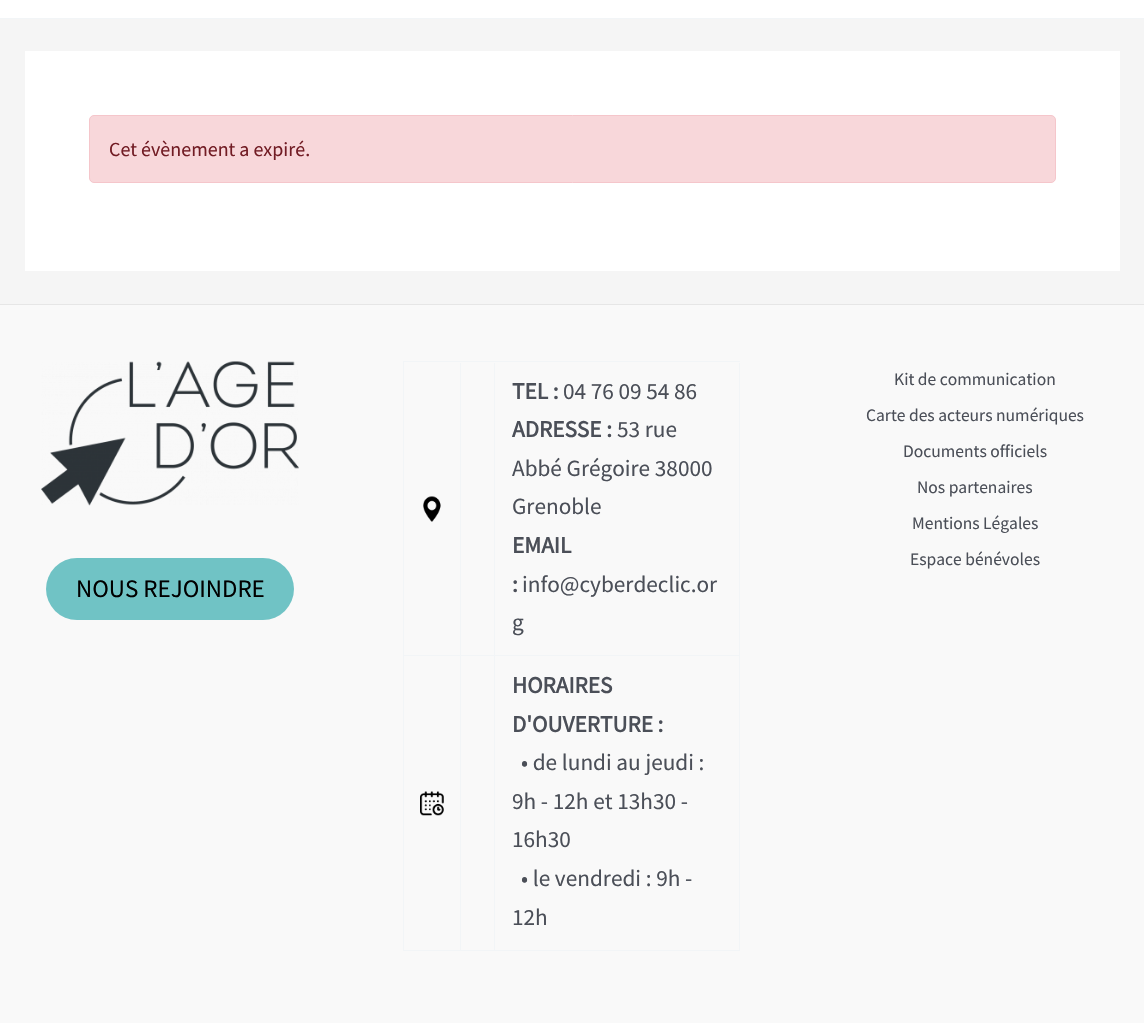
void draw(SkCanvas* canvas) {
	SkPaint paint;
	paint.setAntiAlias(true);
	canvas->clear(0xfff5f5f5);
	paint.setColor(0xffffffff);
	canvas->drawRect(SkRect::MakeXYWH(0, 0, 1144, 18), paint);
	paint.setColor(0xfff2f5f7);
	canvas->drawRect(SkRect::MakeXYWH(0, 18, 1144, 1), paint);
	paint.setColor(0xffffffff);
	canvas->drawRect(SkRect::MakeXYWH(25, 51, 1095, 220), paint);
	paint.setColor(0xfff8d7da);
	canvas->drawRoundRect(SkRect::MakeXYWH(89.5, 115.5, 966, 67), 4.5, 4.5, paint);
	paint.setStroke(true);
	paint.setStrokeWidth(1);
	paint.setColor(0xfff5c6cb);
	canvas->drawRoundRect(SkRect::MakeXYWH(89.5, 115.5, 966, 67), 4.5, 4.5, paint);
	SkFont f1(fontMgr->matchFamilyStyle("Source Sans Pro", SkFontStyle::Normal()), 20);
	f1.setSubpixel(true);
	paint.setStroke(false);
	paint.setColor(0xff721c24);
	canvas->drawString("Cet évènement a expiré.", 109, 156, f1, paint);
	paint.setColor(0xfff9f9f9);
	canvas->drawRect(SkRect::MakeXYWH(0, 305, 1144, 718), paint);
	paint.setColor(0xffe6e6e6);
	canvas->drawRect(SkRect::MakeXYWH(0, 304, 1144, 1), paint);
	canvas->drawImageRect(SkImages::DeferredFromEncodedData(SkData::MakeFromFileName("img1.png")), SkRect::MakeXYWH(41, 361, 258, 145), SkSamplingOptions());
	paint.setColor(0xff70c3c5);
	canvas->drawRoundRect(SkRect::MakeXYWH(46, 558, 248, 62), 31, 31, paint);
	SkFont f2(fontMgr->matchFamilyStyle("Source Sans Pro", SkFontStyle::Normal()), 25);
	f2.setSubpixel(true);
	paint.setColor(0xff000000);
	canvas->drawString("NOUS REJOINDRE", 76, 597, f2, paint);
	paint.setColor(0xfff2f5f7);
	canvas->drawRect(SkRect::MakeXYWH(403, 361, 337, 1), paint);
	canvas->drawRect(SkRect::MakeXYWH(403, 361, 1, 590), paint);
	canvas->drawRect(SkRect::MakeXYWH(460, 363, 1, 588), paint);
	canvas->drawRect(SkRect::MakeXYWH(404, 655, 57, 1), paint);
	canvas->drawImageRect(SkImages::DeferredFromEncodedData(SkData::MakeFromFileName("img2.png")), SkRect::MakeXYWH(423, 496, 18, 26), SkSamplingOptions());
	canvas->drawRect(SkRect::MakeXYWH(494, 363, 1, 588), paint);
	canvas->drawRect(SkRect::MakeXYWH(461, 655, 34, 1), paint);
	canvas->drawRect(SkRect::MakeXYWH(739, 363, 1, 588), paint);
	canvas->drawRect(SkRect::MakeXYWH(495, 655, 245, 1), paint);
	SkFont f3(fontMgr->matchFamilyStyle("Source Sans Pro", SkFontStyle::Bold()), 23.25);
	f3.setSubpixel(true);
	paint.setColor(0xff4b4f58);
	canvas->drawString("TEL :", 512, 399, f3, paint);
	SkFont f4(fontMgr->matchFamilyStyle("Source Sans Pro", SkFontStyle::Normal()), 23.25);
	f4.setSubpixel(true);
	canvas->drawString("04 76 09 54 86", 563, 399, f4, paint);
	canvas->drawString("ADRESSE :", 512, 437, f3, paint);
	canvas->drawString("53 rue", 617, 437, f4, paint);
	canvas->drawString("Abbé Grégoire 38000", 512, 476, f4, paint);
	canvas->drawString("Grenoble", 512, 514, f4, paint);
	canvas->drawString("EMAIL", 512, 553, f3, paint);
	canvas->drawString(":", 512, 592, f3, paint);
	canvas->drawString("info@cyberdeclic.or", 522, 592, f4, paint);
	canvas->drawString("g", 512, 630, f4, paint);
	canvas->drawString("HORAIRES", 512, 693, f3, paint);
	canvas->drawString("D'OUVERTURE :", 512, 732, f3, paint);
	canvas->drawString("• de lundi au jeudi :", 521, 770, f4, paint);
	canvas->drawString("9h - 12h et 13h30 -", 512, 809, f4, paint);
	canvas->drawString("16h30", 512, 847, f4, paint);
	canvas->drawString("• le vendredi : 9h -", 521, 886, f4, paint);
	canvas->drawString("12h", 512, 925, f4, paint);
	paint.setColor(0xfff2f5f7);
	canvas->drawRect(SkRect::MakeXYWH(404, 950, 336, 1), paint);
	canvas->drawImageRect(SkImages::DeferredFromEncodedData(SkData::MakeFromFileName("img3.png")), SkRect::MakeXYWH(420, 791, 24, 25), SkSamplingOptions());
	SkFont f5(fontMgr->matchFamilyStyle("Source Sans Pro", SkFontStyle::Normal()), 17.5);
	f5.setSubpixel(true);
	paint.setColor(0xff4b4f58);
	canvas->drawString("Kit de communication", 894, 385, f5, paint);
	canvas->drawString("Carte des acteurs numériques", 866, 421, f5, paint);
	canvas->drawString("Documents officiels", 903, 457, f5, paint);
	canvas->drawString("Nos partenaires", 917, 493, f5, paint);
	canvas->drawString("Mentions Légales", 912, 529, f5, paint);
	canvas->drawString("Espace bénévoles", 910, 565, f5, paint);
}
